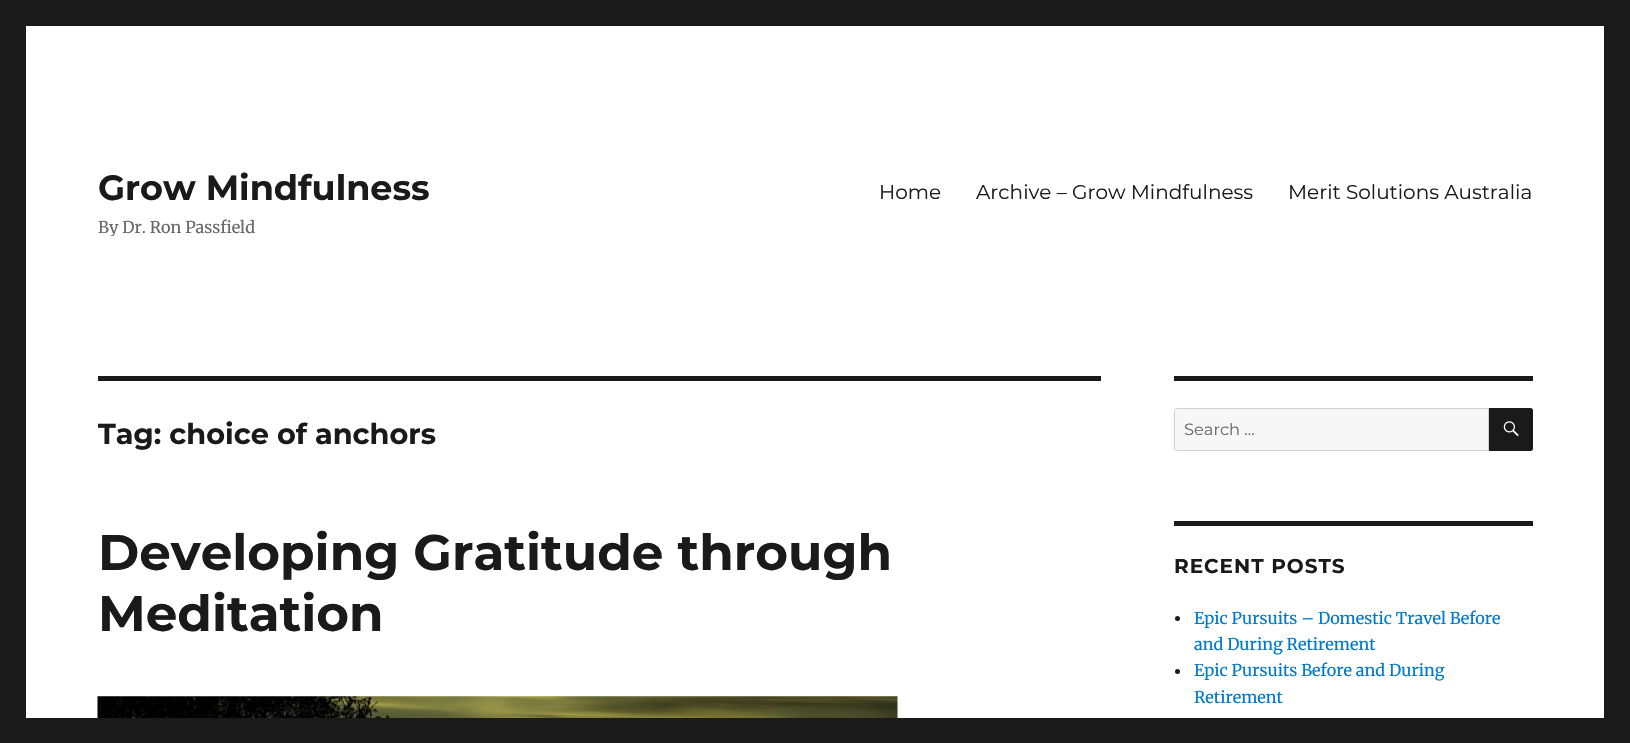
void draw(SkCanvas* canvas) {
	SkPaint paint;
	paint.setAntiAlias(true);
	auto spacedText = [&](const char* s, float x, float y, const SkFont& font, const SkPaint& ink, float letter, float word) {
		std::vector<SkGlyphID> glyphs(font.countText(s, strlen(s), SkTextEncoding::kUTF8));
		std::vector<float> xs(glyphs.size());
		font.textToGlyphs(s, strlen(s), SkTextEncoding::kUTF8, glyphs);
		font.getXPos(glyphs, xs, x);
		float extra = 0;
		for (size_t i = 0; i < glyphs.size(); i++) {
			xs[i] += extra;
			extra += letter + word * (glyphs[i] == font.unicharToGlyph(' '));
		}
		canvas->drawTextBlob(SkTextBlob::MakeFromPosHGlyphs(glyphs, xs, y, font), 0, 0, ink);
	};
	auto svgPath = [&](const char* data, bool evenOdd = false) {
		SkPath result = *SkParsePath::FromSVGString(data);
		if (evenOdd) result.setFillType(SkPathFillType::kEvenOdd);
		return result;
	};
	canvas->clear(0xff1a1a1a);
	paint.setColor(0xffffffff);
	canvas->drawRect(SkRect::MakeXYWH(26, 26, 1578, 692), paint);
	SkFont f1(fontMgr->matchFamilyStyle("Montserrat", SkFontStyle::Bold()), 35);
	f1.setSubpixel(true);
	paint.setColor(0xff1a1a1a);
	canvas->drawString("Grow Mindfulness", 98, 200, f1, paint);
	canvas->save();
	canvas->clipRect(SkRect::MakeXYWH(98, 166, 332, 70));
	SkFont f2(fontMgr->matchFamilyStyle("Merriweather", SkFontStyle::Normal()), 16.25);
	f2.setSubpixel(true);
	paint.setColor(0xff686868);
	canvas->drawString("By Dr. Ron Passfield", 98, 233, f2, paint);
	canvas->restore();
	SkFont f3(fontMgr->matchFamilyStyle("Montserrat", SkFontStyle::Normal()), 20);
	f3.setSubpixel(true);
	paint.setColor(0xff1a1a1a);
	canvas->drawString("Home", 879, 199, f3, paint);
	canvas->drawString("Archive – Grow Mindfulness", 976, 199, f3, paint);
	canvas->drawString("Merit Solutions Australia", 1288, 199, f3, paint);
	canvas->drawRect(SkRect::MakeXYWH(98, 376, 1003, 5), paint);
	SkFont f4(fontMgr->matchFamilyStyle("Montserrat", SkFontStyle::Bold()), 28.75);
	f4.setSubpixel(true);
	canvas->drawString("Tag: choice of anchors", 98, 444, f4, paint);
	SkFont f5(fontMgr->matchFamilyStyle("Montserrat", SkFontStyle::Bold()), 50);
	f5.setSubpixel(true);
	canvas->drawString("Developing Gratitude through", 98, 570, f5, paint);
	canvas->drawString("Meditation", 98, 631, f5, paint);
	canvas->drawImageRect(SkImages::DeferredFromEncodedData(SkData::MakeFromFileName("img1.png")), SkRect::MakeXYWH(97, 696, 801, 22), SkSamplingOptions());
	canvas->drawRect(SkRect::MakeXYWH(1174, 376, 359, 5), paint);
	paint.setColor(0xfff7f7f7);
	canvas->drawPath(svgPath("M1176.5 408.5H1488.5V450.5H1176.5C1175.5 450.5 1174.5 449.5 1174.5 448.5V410.5C1174.5 409.5 1175.5 408.5 1176.5 408.5Z"), paint);
	paint.setStroke(true);
	paint.setStrokeWidth(1);
	paint.setColor(0xffd1d1d1);
	canvas->drawPath(svgPath("M1176.5 408.5H1488.5V450.5H1176.5C1175.5 450.5 1174.5 449.5 1174.5 448.5V410.5C1174.5 409.5 1175.5 408.5 1176.5 408.5Z"), paint);
	SkFont f6(fontMgr->matchFamilyStyle("Montserrat", SkFontStyle::Normal()), 16.25);
	f6.setSubpixel(true);
	paint.setStroke(false);
	paint.setColor(0xff686868);
	canvas->drawString("Search …", 1184, 435, f6, paint);
	paint.setColor(0xff1a1a1a);
	canvas->drawPath(svgPath("M1489 408H1530.5C1532 408 1533 409 1533 410.5V448.5C1533 450 1532 451 1530.5 451H1489Z"), paint);
	canvas->drawImageRect(SkImages::DeferredFromEncodedData(SkData::MakeFromFileName("img2.png")), SkRect::MakeXYWH(1503, 421, 16, 16), SkSamplingOptions());
	canvas->drawRect(SkRect::MakeXYWH(1174, 521, 359, 5), paint);
	SkFont f7(fontMgr->matchFamilyStyle("Montserrat", SkFontStyle::Bold()), 20);
	f7.setSubpixel(true);
	spacedText("RECENT POSTS", 1174, 573, f7, paint, 1, 0);
	canvas->drawCircle(1177.5, 618.5, 2.5, paint);
	paint.setColor(0xff007acc);
	canvas->drawString("Epic Pursuits – Domestic Travel Before", 1194, 624, f2, paint);
	canvas->drawString("and During Retirement", 1194, 650, f2, paint);
	paint.setColor(0xff1a1a1a);
	canvas->drawCircle(1177.5, 671.5, 2.5, paint);
	paint.setColor(0xff007acc);
	canvas->drawString("Epic Pursuits Before and During", 1194, 676, f2, paint);
	canvas->drawString("Retirement", 1194, 703, f2, paint);
}
